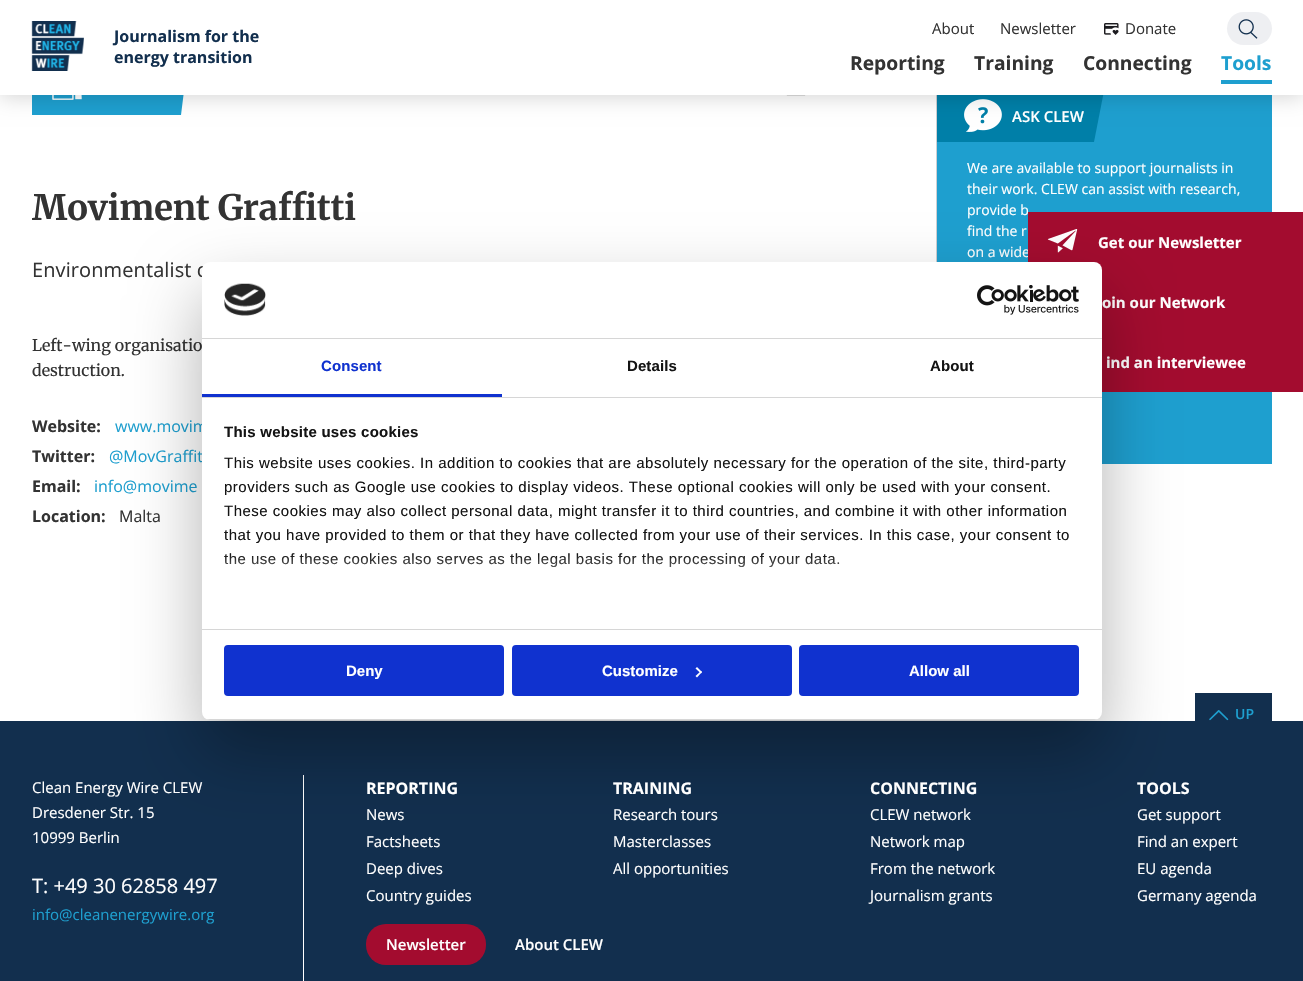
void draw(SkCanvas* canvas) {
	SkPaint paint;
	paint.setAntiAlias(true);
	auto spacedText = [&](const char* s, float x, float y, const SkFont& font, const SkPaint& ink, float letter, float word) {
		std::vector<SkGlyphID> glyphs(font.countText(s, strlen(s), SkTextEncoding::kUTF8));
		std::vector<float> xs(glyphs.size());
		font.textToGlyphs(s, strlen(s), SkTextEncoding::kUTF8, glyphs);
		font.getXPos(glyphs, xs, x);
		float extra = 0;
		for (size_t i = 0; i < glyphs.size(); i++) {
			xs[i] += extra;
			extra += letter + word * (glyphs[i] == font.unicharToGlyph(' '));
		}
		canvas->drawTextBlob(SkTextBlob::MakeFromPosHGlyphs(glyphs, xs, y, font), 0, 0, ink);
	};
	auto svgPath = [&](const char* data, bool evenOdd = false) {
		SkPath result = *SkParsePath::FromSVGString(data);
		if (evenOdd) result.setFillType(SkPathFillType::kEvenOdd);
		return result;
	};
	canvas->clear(0xffffffff);
	paint.setColor(0xff1e9fcf);
	canvas->drawRect(SkRect::MakeXYWH(32, 95, 149, 20), paint);
	canvas->drawImageRect(SkImages::DeferredFromEncodedData(SkData::MakeFromFileName("img4.png")), SkRect::MakeXYWH(52, 95, 30, 5), SkSamplingOptions());
	canvas->drawPath(svgPath("M181 115V59H188Z"), paint);
	canvas->drawImageRect(SkImages::DeferredFromEncodedData(SkData::MakeFromFileName("img5.png")), SkRect::MakeXYWH(786, 95, 20, 1), SkSamplingOptions());
	paint.setColor(0xffcecfd2);
	canvas->drawRect(SkRect::MakeXYWH(936, 95, 1, 167), paint);
	paint.setColor(0xff1e9fcf);
	canvas->drawRect(SkRect::MakeXYWH(937, 95, 335, 369), paint);
	paint.setColor(0xff007fa8);
	canvas->drawRect(SkRect::MakeXYWH(937, 95, 167, 47), paint);
	canvas->drawImageRect(SkImages::DeferredFromEncodedData(SkData::MakeFromFileName("img6.png")), SkRect::MakeXYWH(964, 99, 38, 33), SkSamplingOptions());
	paint.setColor(0xff1e9fcf);
	canvas->drawPath(svgPath("M1104 91H1127L1117 142H1094Z"), paint);
	paint.setColor(0x2b000000);
	paint.setMaskFilter(SkMaskFilter::MakeBlur(kNormal_SkBlurStyle, 10));
	canvas->drawRect(SkRect::MakeXYWH(0, 2, 1303, 95), paint);
	paint.setMaskFilter(nullptr);
	paint.setColor(0xffffffff);
	canvas->drawRect(SkRect::MakeXYWH(0, 0, 1303, 95), paint);
	canvas->drawImageRect(SkImages::DeferredFromEncodedData(SkData::MakeFromFileName("img1.png")), SkRect::MakeXYWH(31, 21, 53, 50), SkSamplingOptions());
	SkFont f1(fontMgr->matchFamilyStyle("Open Sans", SkFontStyle::Bold()), 16);
	f1.setSubpixel(true);
	paint.setColor(0xff122f4e);
	canvas->drawString("Journalism for the", 114, 42, f1, paint);
	canvas->drawString("energy transition", 114, 63, f1, paint);
	SkFont f2(fontMgr->matchFamilyStyle("Open Sans", SkFontStyle::Normal()), 15);
	f2.setSubpixel(true);
	paint.setColor(0xff333333);
	canvas->drawString("About", 932, 34, f2, paint);
	canvas->drawString("Newsletter", 1000, 34, f2, paint);
	canvas->drawImageRect(SkImages::DeferredFromEncodedData(SkData::MakeFromFileName("img2.png")), SkRect::MakeXYWH(1104, 23, 15, 12), SkSamplingOptions());
	canvas->drawString("Donate", 1125, 34, f2, paint);
	paint.setColor(0xffeeeff2);
	canvas->drawRoundRect(SkRect::MakeXYWH(1227, 12, 45, 33), 16.5, 16.5, paint);
	canvas->drawImageRect(SkImages::DeferredFromEncodedData(SkData::MakeFromFileName("img3.png")), SkRect::MakeXYWH(1238, 19, 20, 20), SkSamplingOptions());
	SkFont f3(fontMgr->matchFamilyStyle("Open Sans", SkFontStyle::Bold()), 19.25);
	f3.setSubpixel(true);
	paint.setColor(0xff333333);
	canvas->drawString("Reporting", 850, 70, f3, paint);
	canvas->drawString("Training", 974, 70, f3, paint);
	canvas->drawString("Connecting", 1083, 70, f3, paint);
	paint.setColor(0xff1e9fcf);
	canvas->drawString("Tools", 1221, 70, f3, paint);
	canvas->drawRect(SkRect::MakeXYWH(1221, 80, 51, 4), paint);
	SkFont f4(fontMgr->matchFamilyStyle("Merriweather", SkFontStyle::Bold()), 35);
	f4.setSubpixel(true);
	paint.setColor(0xff333333);
	canvas->drawString("Moviment Graffitti", 32, 220, f4, paint);
	SkFont f5(fontMgr->matchFamilyStyle("Open Sans", SkFontStyle::Normal()), 20);
	f5.setSubpixel(true);
	spacedText("Environmentalist o", 32, 277, f5, paint, 0.1, 0);
	SkFont f6(fontMgr->matchFamilyStyle("Merriweather", SkFontStyle::Normal()), 16);
	f6.setSubpixel(true);
	canvas->drawString("Left-wing organisatio", 32, 351, f6, paint);
	canvas->drawString("destruction.", 32, 376, f6, paint);
	canvas->drawString("Website:", 32, 432, f1, paint);
	SkFont f7(fontMgr->matchFamilyStyle("Open Sans", SkFontStyle::Normal()), 16);
	f7.setSubpixel(true);
	paint.setColor(0xff1e9fcf);
	canvas->drawString("www.movim", 115, 432, f7, paint);
	canvas->save();
	canvas->clipRect(SkRect::MakeXYWH(32, 59, 1240, 474));
	paint.setColor(0xff333333);
	canvas->drawString("Twitter:", 32, 462, f1, paint);
	canvas->restore();
	paint.setColor(0xff1e9fcf);
	canvas->drawString("@MovGraffit", 109, 462, f7, paint);
	paint.setColor(0xff333333);
	canvas->drawString("Email:", 32, 492, f1, paint);
	paint.setColor(0xff1e9fcf);
	canvas->drawString("info@movime", 94, 492, f7, paint);
	paint.setColor(0xff333333);
	canvas->drawString("Location:", 32, 522, f1, paint);
	canvas->drawString("Malta", 119, 522, f7, paint);
	SkFont f8(fontMgr->matchFamilyStyle("Open Sans", SkFontStyle(600, SkFontStyle::kNormal_Width, SkFontStyle::kUpright_Slant)), 15);
	f8.setSubpixel(true);
	paint.setColor(0xffffffff);
	canvas->drawString("ASK CLEW", 1012, 122, f8, paint);
	SkFont f9(fontMgr->matchFamilyStyle("Open Sans", SkFontStyle::Normal()), 14);
	f9.setSubpixel(true);
	canvas->drawString("We are available to support journalists in", 967, 173, f9, paint);
	canvas->drawString("their work. CLEW can assist with research,", 967, 194, f9, paint);
	canvas->drawString("provide b", 967, 215, f9, paint);
	canvas->drawString("find the r", 967, 236, f9, paint);
	canvas->drawString("on a wide", 967, 257, f9, paint);
	paint.setColor(0xffa30c2f);
	canvas->drawRect(SkRect::MakeXYWH(1028, 212, 275, 60), paint);
	canvas->drawImageRect(SkImages::DeferredFromEncodedData(SkData::MakeFromFileName("img7.png")), SkRect::MakeXYWH(1047, 229, 31, 24), SkSamplingOptions());
	SkFont f10(fontMgr->matchFamilyStyle("Open Sans", SkFontStyle::Bold()), 15);
	f10.setSubpixel(true);
	paint.setColor(0xffffffff);
	canvas->drawString("Get our Newsletter", 1098, 248, f10, paint);
	paint.setColor(0xffa30c2f);
	canvas->drawRect(SkRect::MakeXYWH(1102, 272, 201, 120), paint);
	paint.setColor(0xffffffff);
	canvas->drawString("oin our Network", 1102, 308, f10, paint);
	canvas->drawString("ind an interviewee", 1106, 368, f10, paint);
	paint.setColor(0xff122f4e);
	canvas->drawRect(SkRect::MakeXYWH(0, 721, 1303, 260), paint);
	canvas->drawRect(SkRect::MakeXYWH(1195, 693, 77, 28), paint);
	paint.setColor(0xffffffff);
	canvas->drawRect(SkRect::MakeXYWH(303, 775, 1, 206), paint);
	paint.setColor(0x4d000000);
	paint.setMaskFilter(SkMaskFilter::MakeBlur(kNormal_SkBlurStyle, 34));
	canvas->drawRoundRect(SkRect::MakeXYWH(202, 294, 900, 458), 8, 8, paint);
	paint.setMaskFilter(nullptr);
	paint.setColor(0xffffffff);
	canvas->drawRoundRect(SkRect::MakeXYWH(202, 262, 900, 458), 8, 8, paint);
	paint.setColor(0xffd6d6d6);
	canvas->drawRect(SkRect::MakeXYWH(202, 338, 900, 1), paint);
	canvas->drawImageRect(SkImages::DeferredFromEncodedData(SkData::MakeFromFileName("img8.png")), SkRect::MakeXYWH(224, 283, 42, 33), SkSamplingOptions());
	canvas->drawImageRect(SkImages::DeferredFromEncodedData(SkData::MakeFromFileName("img9.png")), SkRect::MakeXYWH(977, 285, 102, 30), SkSamplingOptions());
	canvas->drawRect(SkRect::MakeXYWH(202, 397, 900, 1), paint);
	paint.setColor(0xff1032cf);
	canvas->drawRect(SkRect::MakeXYWH(202, 394, 300, 3), paint);
	SkFont f11(fontMgr->matchFamilyStyle("Liberation Sans", SkFontStyle::Bold()), 15);
	f11.setSubpixel(true);
	spacedText("Consent", 321, 371, f11, paint, 0.1, 0);
	paint.setColor(0xff141414);
	spacedText("Details", 627, 371, f11, paint, 0.1, 0);
	spacedText("About", 930, 371, f11, paint, 0.1, 0);
	paint.setColor(0xffd6d6d6);
	canvas->drawRect(SkRect::MakeXYWH(202, 629, 900, 1), paint);
	paint.setColor(0xff141414);
	spacedText("This website uses cookies", 224, 437, f11, paint, 0.25, 0);
	SkFont f12(fontMgr->matchFamilyStyle("Liberation Sans", SkFontStyle::Normal()), 15);
	f12.setSubpixel(true);
	spacedText("This website uses cookies. In addition to cookies that are absolutely necessary for the operation of the site, third-party", 224, 468, f12, paint, 0.5, 0);
	spacedText("providers such as Google use cookies to display videos. These optional cookies will only be used with your consent.", 224, 492, f12, paint, 0.5, 0);
	spacedText("These cookies may also collect personal data, might transfer it to third countries, and combine it with other information", 224, 516, f12, paint, 0.5, 0);
	spacedText("that you have provided to them or that they have collected from your use of their services. In this case, your consent to", 224, 540, f12, paint, 0.5, 0);
	spacedText("the use of these cookies also serves as the legal basis for the processing of your data.", 224, 564, f12, paint, 0.5, 0);
	{
		const SkColor colors[] = {0xffffffff, 0xccffffff, 0x00ffffff};
		const float stops[] = {0, 0.5, 1};
		const SkPoint ends[] = {{642, 629}, {642, 554}};
		paint.setShader(SkGradientShader::MakeLinear(ends, colors, stops, 3, SkTileMode::kClamp));
		paint.setAlpha(255);
	}
	canvas->drawRect(SkRect::MakeXYWH(224, 555, 615, 13), paint);
	canvas->save();
	canvas->clipPath(svgPath("M210 262H1094C1098.5 262 1102 265.5 1102 270V712C1102 716.5 1098.5 720 1094 720H210C205.5 720 202 716.5 202 712V270C202 265.5 205.5 262 210 262Z"), true);
	paint.setShader(nullptr);
	paint.setColor(0xffd6d6d6);
	canvas->drawRect(SkRect::MakeXYWH(202, 719, 900, 1), paint);
	canvas->restore();
	paint.setColor(0xff1032cf);
	canvas->drawRoundRect(SkRect::MakeXYWH(225, 646, 278, 49), 3, 3, paint);
	paint.setStroke(true);
	paint.setStrokeWidth(2);
	canvas->drawRoundRect(SkRect::MakeXYWH(225, 646, 278, 49), 3, 3, paint);
	paint.setStroke(false);
	paint.setColor(0xffffffff);
	canvas->drawString("Deny", 346, 676, f11, paint);
	paint.setColor(0xff1032cf);
	canvas->drawRoundRect(SkRect::MakeXYWH(513, 646, 278, 49), 3, 3, paint);
	paint.setStroke(true);
	canvas->drawRoundRect(SkRect::MakeXYWH(513, 646, 278, 49), 3, 3, paint);
	paint.setStroke(false);
	paint.setColor(0xffffffff);
	canvas->drawString("Customize", 602, 676, f11, paint);
	canvas->drawPath(svgPath("M697 667L702 672L701 673.5L695.5 668.5Z"), paint);
	canvas->drawPath(svgPath("M701 671L702 672L697 677.5L695.5 676Z"), paint);
	paint.setColor(0xff1032cf);
	canvas->drawRoundRect(SkRect::MakeXYWH(800, 646, 278, 49), 3, 3, paint);
	paint.setStroke(true);
	canvas->drawRoundRect(SkRect::MakeXYWH(800, 646, 278, 49), 3, 3, paint);
	paint.setStroke(false);
	paint.setColor(0xffffffff);
	canvas->drawString("Allow all", 909, 676, f11, paint);
	canvas->drawImageRect(SkImages::DeferredFromEncodedData(SkData::MakeFromFileName("img10.png")), SkRect::MakeXYWH(1209, 710, 20, 11), SkSamplingOptions());
	SkFont f13(fontMgr->matchFamilyStyle("Open Sans", SkFontStyle(600, SkFontStyle::kNormal_Width, SkFontStyle::kUpright_Slant)), 14);
	f13.setSubpixel(true);
	paint.setColor(0xff1e9fcf);
	canvas->drawString("UP", 1235, 719, f13, paint);
	paint.setColor(0xffffffff);
	canvas->drawString("Clean Energy Wire CLEW", 32, 793, f2, paint);
	canvas->drawString("Dresdener Str. 15", 32, 818, f2, paint);
	canvas->drawString("10999 Berlin", 32, 843, f2, paint);
	canvas->drawString("T: +49 30 62858 497", 32, 893, f5, paint);
	paint.setColor(0xff1e9fcf);
	canvas->drawString("info@cleanenergywire.org", 32, 920, f2, paint);
	paint.setColor(0xffffffff);
	canvas->drawString("REPORTING", 366, 794, f1, paint);
	canvas->drawString("News", 366, 820, f2, paint);
	canvas->drawString("Factsheets", 366, 847, f2, paint);
	canvas->drawString("Deep dives", 366, 874, f2, paint);
	canvas->drawString("Country guides", 366, 901, f2, paint);
	canvas->drawString("TRAINING", 613, 794, f1, paint);
	canvas->drawString("Research tours", 613, 820, f2, paint);
	canvas->drawString("Masterclasses", 613, 847, f2, paint);
	canvas->drawString("All opportunities", 613, 874, f2, paint);
	canvas->drawString("CONNECTING", 870, 794, f1, paint);
	canvas->drawString("CLEW network", 870, 820, f2, paint);
	canvas->drawString("Network map", 870, 847, f2, paint);
	canvas->drawString("From the network", 870, 874, f2, paint);
	canvas->drawString("Journalism grants", 870, 901, f2, paint);
	canvas->drawString("TOOLS", 1137, 794, f1, paint);
	canvas->drawString("Get support", 1137, 820, f2, paint);
	canvas->drawString("Find an expert", 1137, 847, f2, paint);
	canvas->drawString("EU agenda", 1137, 874, f2, paint);
	canvas->drawString("Germany agenda", 1137, 901, f2, paint);
	paint.setColor(0xffa30c2f);
	canvas->drawRoundRect(SkRect::MakeXYWH(366, 924, 120, 41), 20, 20, paint);
	paint.setColor(0xffffffff);
	canvas->drawString("Newsletter", 386, 950, f8, paint);
	canvas->drawString("About CLEW", 515, 950, f8, paint);
}
